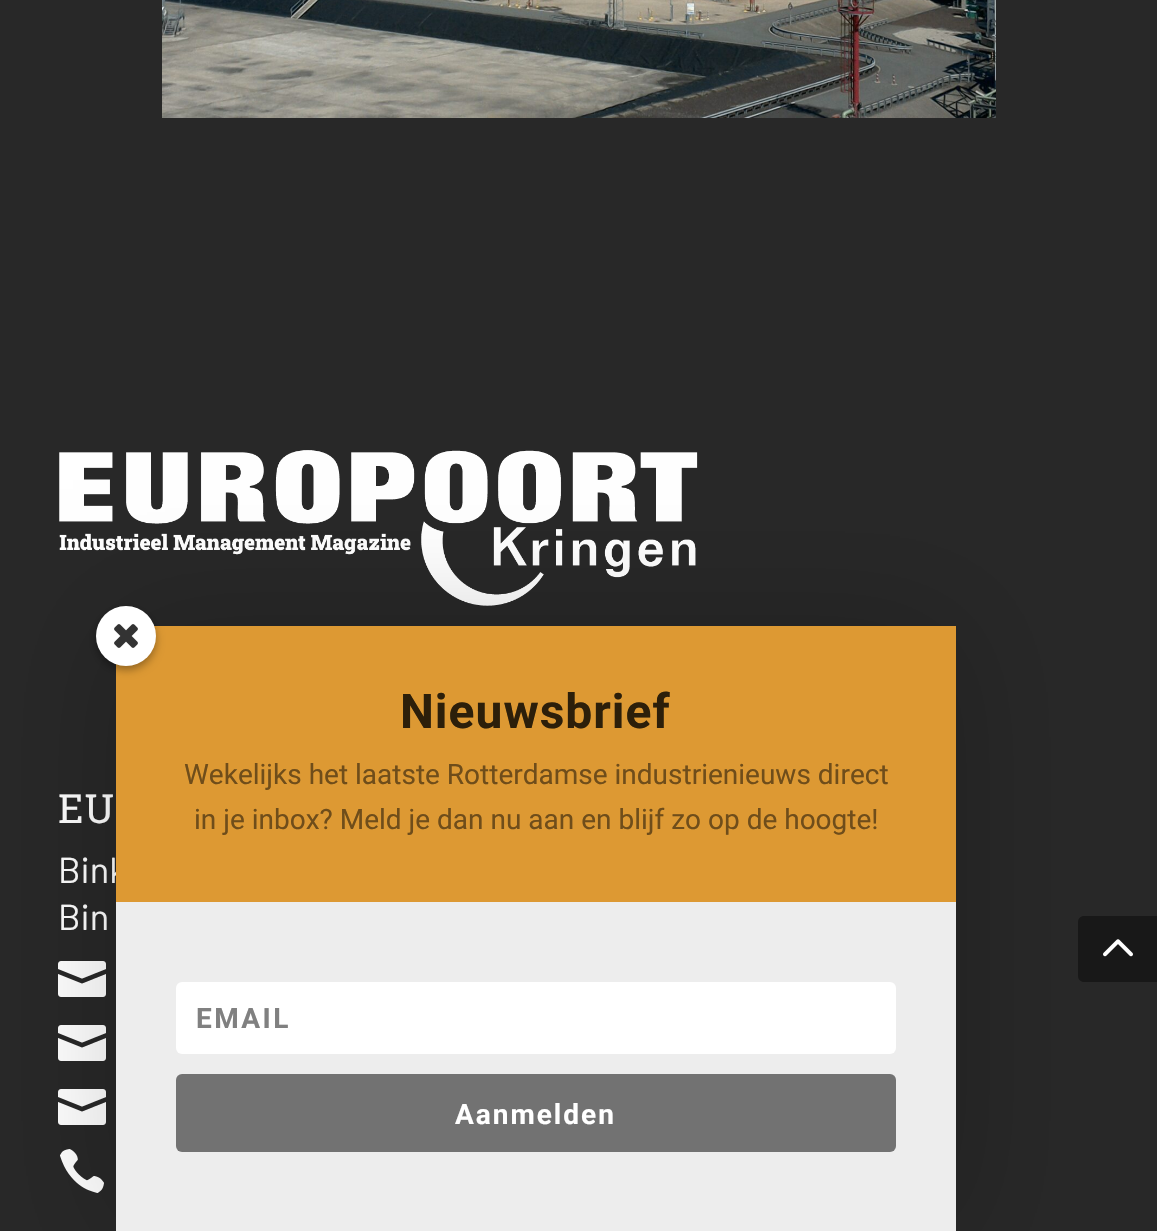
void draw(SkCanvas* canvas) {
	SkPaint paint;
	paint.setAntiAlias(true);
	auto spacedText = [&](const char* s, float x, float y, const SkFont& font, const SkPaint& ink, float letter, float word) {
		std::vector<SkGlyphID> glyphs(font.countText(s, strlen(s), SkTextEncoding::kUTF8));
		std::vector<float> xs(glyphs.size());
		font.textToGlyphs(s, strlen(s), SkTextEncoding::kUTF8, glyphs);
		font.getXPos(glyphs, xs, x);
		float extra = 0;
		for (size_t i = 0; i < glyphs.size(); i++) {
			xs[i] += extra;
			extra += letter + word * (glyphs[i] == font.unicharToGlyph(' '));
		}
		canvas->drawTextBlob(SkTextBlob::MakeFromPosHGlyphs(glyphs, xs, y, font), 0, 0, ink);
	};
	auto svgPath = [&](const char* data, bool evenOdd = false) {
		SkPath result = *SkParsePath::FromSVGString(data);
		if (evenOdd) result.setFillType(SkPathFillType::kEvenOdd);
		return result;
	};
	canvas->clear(0xff282828);
	canvas->drawImageRect(SkImages::DeferredFromEncodedData(SkData::MakeFromFileName("img1.png")), SkRect::MakeXYWH(162, 0, 834, 118), SkSamplingOptions());
	canvas->drawImageRect(SkImages::DeferredFromEncodedData(SkData::MakeFromFileName("img2.png")), SkRect::MakeXYWH(59, 450, 639, 156), SkSamplingOptions());
	SkFont f1(fontMgr->matchFamilyStyle("Roboto Slab", SkFontStyle::Normal()), 40);
	f1.setSubpixel(true);
	paint.setColor(0xffffffff);
	spacedText("EU", 58, 823, f1, paint, 1, 0);
	SkFont f2(fontMgr->matchFamilyStyle("Barlow", SkFontStyle::Normal()), 36);
	f2.setSubpixel(true);
	canvas->drawString("Bink", 58, 883, f2, paint);
	canvas->drawString("Bin", 58, 930, f2, paint);
	canvas->drawImageRect(SkImages::DeferredFromEncodedData(SkData::MakeFromFileName("img3.png")), SkRect::MakeXYWH(58, 961, 48, 36), SkSamplingOptions());
	canvas->drawImageRect(SkImages::DeferredFromEncodedData(SkData::MakeFromFileName("img3.png")), SkRect::MakeXYWH(58, 1025, 48, 36), SkSamplingOptions());
	canvas->drawImageRect(SkImages::DeferredFromEncodedData(SkData::MakeFromFileName("img3.png")), SkRect::MakeXYWH(58, 1089, 48, 36), SkSamplingOptions());
	canvas->drawImageRect(SkImages::DeferredFromEncodedData(SkData::MakeFromFileName("img4.png")), SkRect::MakeXYWH(60, 1149, 44, 44), SkSamplingOptions());
	paint.setColor(0xff181818);
	canvas->drawPath(svgPath("M1084 916H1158V982H1084C1080.5 982 1078 979.5 1078 976V922C1078 918.5 1080.5 916 1084 916Z"), paint);
	canvas->drawImageRect(SkImages::DeferredFromEncodedData(SkData::MakeFromFileName("img6.png")), SkRect::MakeXYWH(1103, 939, 30, 18), SkSamplingOptions());
	paint.setColor(0x33000000);
	paint.setMaskFilter(SkMaskFilter::MakeBlur(kNormal_SkBlurStyle, 60));
	canvas->drawRect(SkRect::MakeXYWH(116, 626, 840, 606), paint);
	paint.setMaskFilter(nullptr);
	paint.setColor(0xffdd9933);
	canvas->drawRect(SkRect::MakeXYWH(116, 626, 840, 276), paint);
	paint.setColor(0x57000000);
	paint.setMaskFilter(SkMaskFilter::MakeBlur(kNormal_SkBlurStyle, 4));
	canvas->drawRoundRect(SkRect::MakeXYWH(96, 610, 60, 60), 30, 30, paint);
	paint.setMaskFilter(nullptr);
	paint.setColor(0xffffffff);
	canvas->drawCircle(126, 636, 30, paint);
	canvas->drawImageRect(SkImages::DeferredFromEncodedData(SkData::MakeFromFileName("img5.png")), SkRect::MakeXYWH(114, 624, 24, 24), SkSamplingOptions());
	SkFont f3(fontMgr->matchFamilyStyle("Roboto", SkFontStyle::Bold()), 48);
	f3.setSubpixel(true);
	paint.setColor(0xff2c1f0a);
	spacedText("Nieuwsbrief", 400, 728, f3, paint, 1, 0);
	SkFont f4(fontMgr->matchFamilyStyle("Roboto", SkFontStyle::Normal()), 28);
	f4.setSubpixel(true);
	paint.setColor(0xff6f4d1a);
	canvas->drawString("Wekelijks het laatste Rotterdamse industrienieuws direct", 184, 784, f4, paint);
	canvas->drawString("in je inbox? Meld je dan nu aan en blijf zo op de hoogte!", 194, 829, f4, paint);
	paint.setColor(0xffededed);
	canvas->drawRect(SkRect::MakeXYWH(116, 902, 840, 329), paint);
	paint.setColor(0xffffffff);
	canvas->drawRoundRect(SkRect::MakeXYWH(176, 982, 720, 72), 6, 6, paint);
	SkFont f5(fontMgr->matchFamilyStyle("Roboto", SkFontStyle::Bold()), 28);
	f5.setSubpixel(true);
	paint.setColor(0xff808080);
	spacedText("EMAIL", 196, 1028, f5, paint, 2.5, 0);
	paint.setColor(0xff727272);
	canvas->drawRoundRect(SkRect::MakeXYWH(176, 1074, 720, 78), 6, 6, paint);
	paint.setColor(0xffffffff);
	spacedText("Aanmelden", 455, 1124, f5, paint, 2, 0);
}
